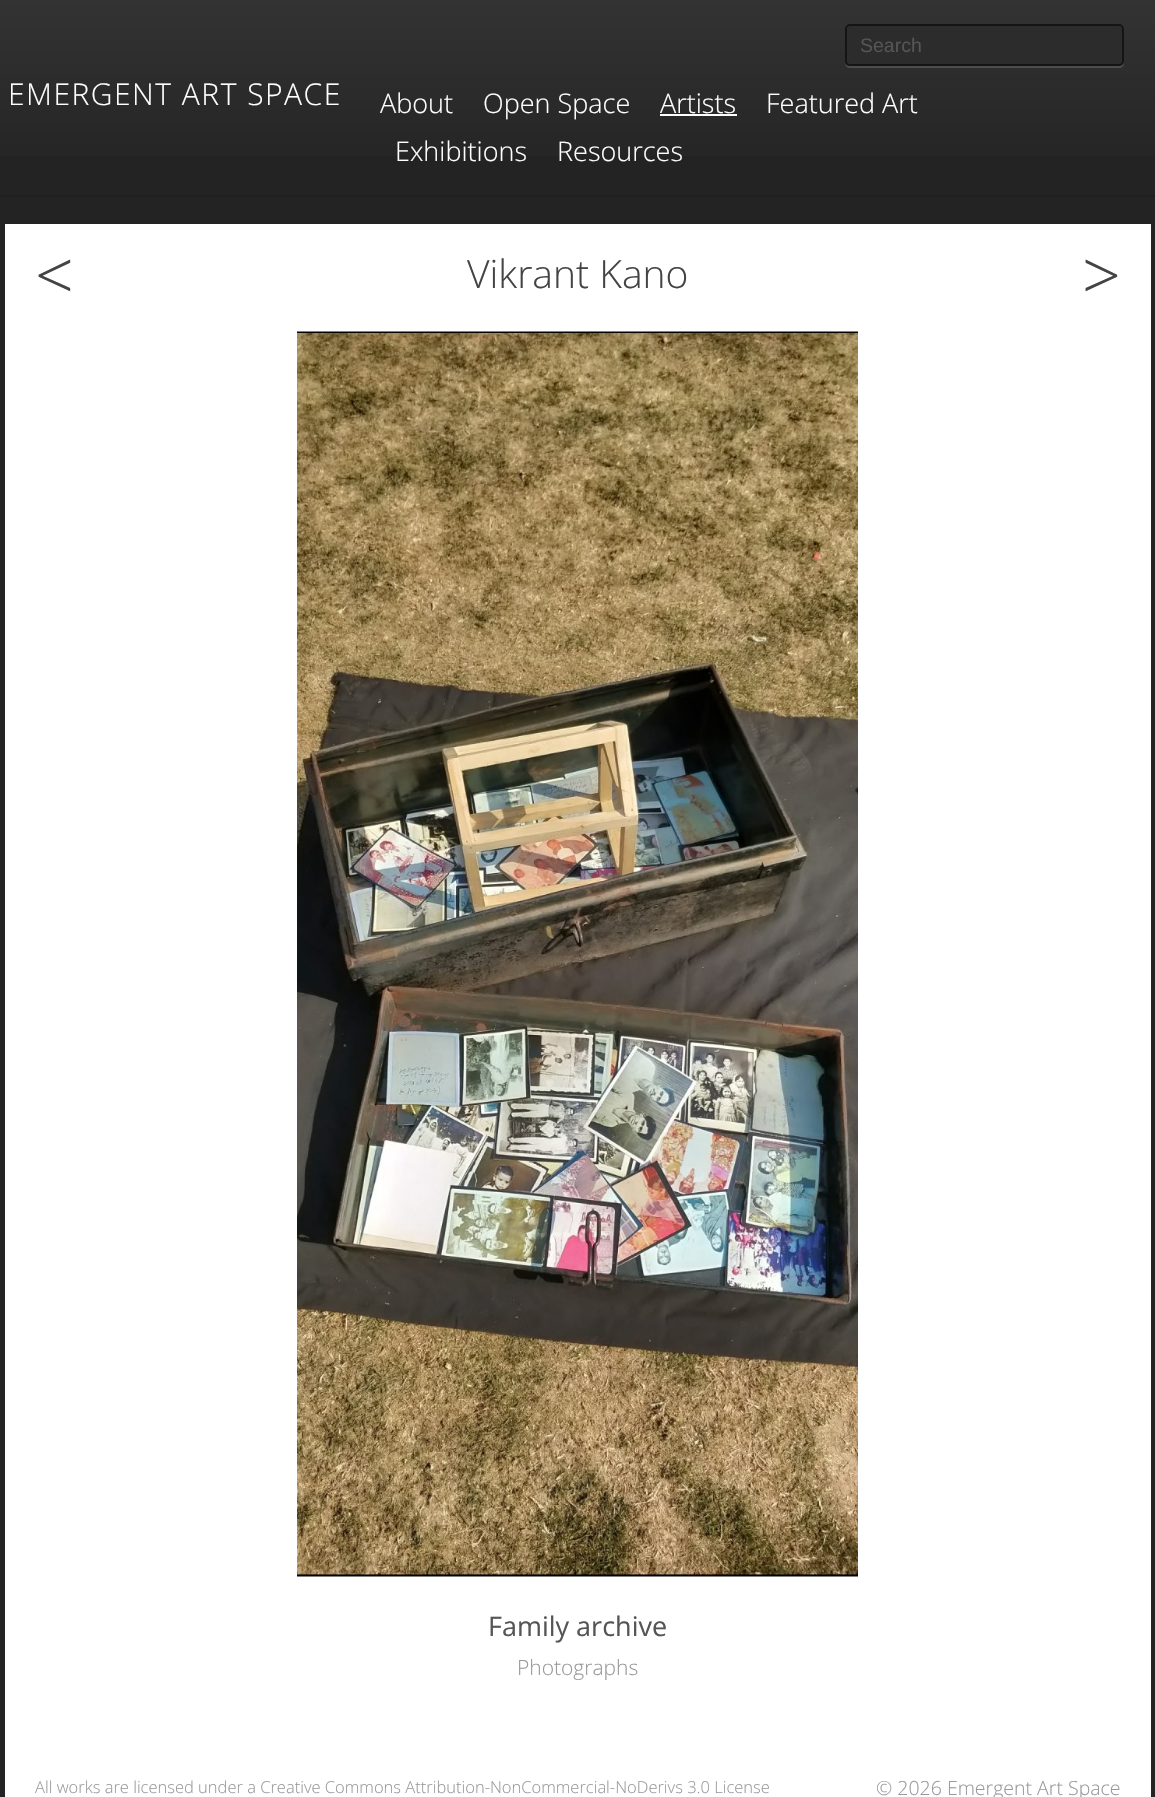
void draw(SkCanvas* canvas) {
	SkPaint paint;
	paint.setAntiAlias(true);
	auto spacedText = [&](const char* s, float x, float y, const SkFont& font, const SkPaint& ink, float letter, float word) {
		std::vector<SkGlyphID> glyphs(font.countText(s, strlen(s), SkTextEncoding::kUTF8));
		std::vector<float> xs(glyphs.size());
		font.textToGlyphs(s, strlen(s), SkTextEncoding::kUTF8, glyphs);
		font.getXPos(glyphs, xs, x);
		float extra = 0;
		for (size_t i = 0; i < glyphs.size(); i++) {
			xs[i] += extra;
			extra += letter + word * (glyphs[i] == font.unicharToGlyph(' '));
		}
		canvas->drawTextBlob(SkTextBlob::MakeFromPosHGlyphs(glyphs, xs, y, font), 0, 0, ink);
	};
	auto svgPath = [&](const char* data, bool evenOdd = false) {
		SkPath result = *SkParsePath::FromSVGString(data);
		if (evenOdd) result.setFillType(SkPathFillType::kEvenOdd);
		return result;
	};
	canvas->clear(0xff232323);
	{
		const SkColor colors[] = {0xff333333, 0xff222222};
		const float stops[] = {0, 1};
		const SkPoint ends[] = {{578, 0}, {578, 197}};
		paint.setShader(SkGradientShader::MakeLinear(ends, colors, stops, 2, SkTileMode::kClamp));
		paint.setAlpha(255);
	}
	canvas->drawRect(SkRect::MakeXYWH(0, 0, 1155, 156), paint);
	paint.setShader(nullptr);
	paint.setColor(0xff1f1f1f);
	canvas->drawRect(SkRect::MakeXYWH(0, 195, 1155, 2), paint);
	paint.setColor(0xff4d4d4d);
	canvas->drawPath(svgPath("M845 64C845 66 847 68 850 68H1119C1122 68 1124 66 1124 63V31V29V62C1124 64 1121 66 1119 66H849C847 66 846 65 845 64Z"), paint);
	paint.setColor(0xff2c2c2c);
	canvas->drawRoundRect(SkRect::MakeXYWH(846, 25, 277, 40), 4, 4, paint);
	paint.setStroke(true);
	paint.setStrokeWidth(2);
	paint.setColor(0xff151515);
	canvas->drawRoundRect(SkRect::MakeXYWH(846, 25, 277, 40), 4, 4, paint);
	SkFont f1(fontMgr->matchFamilyStyle("Liberation Sans", SkFontStyle::Normal()), 19.5);
	f1.setSubpixel(true);
	paint.setStroke(false);
	paint.setColor(0xff555555);
	canvas->drawString("Search", 860, 52, f1, paint);
	SkFont f2(fontMgr->matchFamilyStyle("Open Sans", SkFontStyle(300, SkFontStyle::kNormal_Width, SkFontStyle::kUpright_Slant)), 30);
	f2.setSubpixel(true);
	paint.setColor(0xffffffff);
	spacedText("EMERGENT ART SPACE", 8, 105, f2, paint, 1.5, 0);
	SkFont f3(fontMgr->matchFamilyStyle("Open Sans", SkFontStyle(300, SkFontStyle::kNormal_Width, SkFontStyle::kUpright_Slant)), 27);
	f3.setSubpixel(true);
	canvas->drawString("About", 380, 113, f3, paint);
	canvas->drawString("Open Space", 483, 113, f3, paint);
	canvas->drawString("Artists", 660, 113, f3, paint);
	canvas->drawRect(SkRect::MakeXYWH(660, 114, 77, 2), paint);
	canvas->drawString("Featured Art", 766, 113, f3, paint);
	canvas->drawString("Exhibitions", 395, 161, f3, paint);
	canvas->drawString("Resources", 557, 161, f3, paint);
	canvas->drawRect(SkRect::MakeXYWH(5, 224, 1146, 1573), paint);
	SkFont f4(fontMgr->matchFamilyStyle("Open Sans", SkFontStyle(300, SkFontStyle::kNormal_Width, SkFontStyle::kUpright_Slant)), 68);
	f4.setSubpixel(true);
	paint.setColor(0xff444444);
	canvas->drawString("<", 35, 300, f4, paint);
	SkFont f5(fontMgr->matchFamilyStyle("Open Sans", SkFontStyle(300, SkFontStyle::kNormal_Width, SkFontStyle::kUpright_Slant)), 39);
	f5.setSubpixel(true);
	canvas->drawString("Vikrant Kano", 467, 288, f5, paint);
	canvas->drawString(">", 1082, 300, f4, paint);
	canvas->drawImageRect(SkImages::DeferredFromEncodedData(SkData::MakeFromFileName("img1.png")), SkRect::MakeXYWH(297, 331, 561, 1246), SkSamplingOptions());
	SkFont f6(fontMgr->matchFamilyStyle("Open Sans", SkFontStyle::Normal()), 27);
	f6.setSubpixel(true);
	paint.setColor(0xff555555);
	canvas->drawString("Family archive", 488, 1636, f6, paint);
	SkFont f7(fontMgr->matchFamilyStyle("Open Sans", SkFontStyle(300, SkFontStyle::kNormal_Width, SkFontStyle::kUpright_Slant)), 21);
	f7.setSubpixel(true);
	paint.setColor(0xff999999);
	canvas->drawString("Photographs", 517, 1675, f7, paint);
	SkFont f8(fontMgr->matchFamilyStyle("Open Sans", SkFontStyle(300, SkFontStyle::kNormal_Width, SkFontStyle::kUpright_Slant)), 16.5);
	f8.setSubpixel(true);
	canvas->drawString("All works are licensed under a Creative Commons Attribution-NonCommercial-NoDerivs 3.0 License", 35, 1793, f8, paint);
	SkFont f9(fontMgr->matchFamilyStyle("Open Sans", SkFontStyle(300, SkFontStyle::kNormal_Width, SkFontStyle::kUpright_Slant)), 19.5);
	f9.setSubpixel(true);
	canvas->drawString("© 2026 Emergent Art Space", 876, 1795, f9, paint);
}
